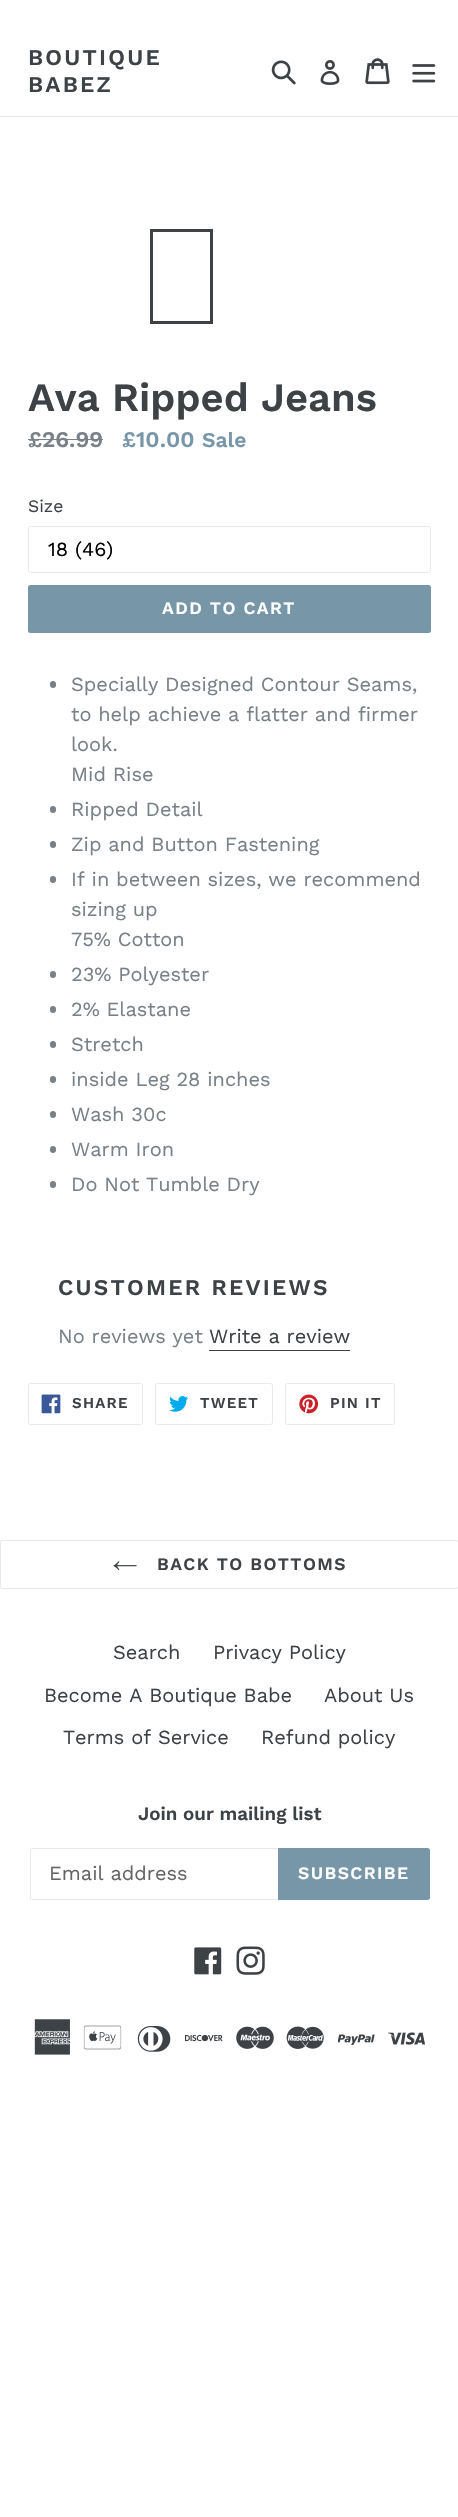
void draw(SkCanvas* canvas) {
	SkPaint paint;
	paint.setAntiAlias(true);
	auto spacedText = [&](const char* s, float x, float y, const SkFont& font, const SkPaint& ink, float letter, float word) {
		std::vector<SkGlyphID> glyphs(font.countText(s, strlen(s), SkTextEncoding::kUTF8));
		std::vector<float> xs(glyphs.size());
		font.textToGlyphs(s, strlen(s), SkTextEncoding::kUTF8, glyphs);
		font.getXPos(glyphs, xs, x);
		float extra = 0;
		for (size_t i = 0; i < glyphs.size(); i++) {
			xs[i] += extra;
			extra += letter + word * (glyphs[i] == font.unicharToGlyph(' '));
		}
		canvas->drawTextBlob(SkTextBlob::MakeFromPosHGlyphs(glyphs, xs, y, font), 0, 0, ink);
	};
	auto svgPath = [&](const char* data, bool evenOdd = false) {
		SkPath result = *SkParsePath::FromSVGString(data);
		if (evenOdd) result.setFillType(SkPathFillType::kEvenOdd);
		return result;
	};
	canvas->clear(0xffffffff);
	paint.setColor(0xffe8e9eb);
	canvas->drawRect(SkRect::MakeXYWH(0, 116, 458, 1), paint);
	SkFont f1(fontMgr->matchFamilyStyle("Work Sans", SkFontStyle(600, SkFontStyle::kNormal_Width, SkFontStyle::kUpright_Slant)), 22.5);
	f1.setSubpixel(true);
	paint.setColor(0xff3d4246);
	spacedText("BOUTIQUE", 28, 65, f1, paint, 2.25, 0);
	spacedText("BABEZ", 28, 92, f1, paint, 2.25, 0);
	canvas->drawImageRect(SkImages::DeferredFromEncodedData(SkData::MakeFromFileName("img1.png")), SkRect::MakeXYWH(271, 60, 25, 25), SkSamplingOptions());
	canvas->drawImageRect(SkImages::DeferredFromEncodedData(SkData::MakeFromFileName("img2.png")), SkRect::MakeXYWH(320, 60, 20, 25), SkSamplingOptions());
	canvas->drawImageRect(SkImages::DeferredFromEncodedData(SkData::MakeFromFileName("img3.png")), SkRect::MakeXYWH(365, 58, 25, 27), SkSamplingOptions());
	canvas->drawImageRect(SkImages::DeferredFromEncodedData(SkData::MakeFromFileName("img4.png")), SkRect::MakeXYWH(412, 64, 24, 19), SkSamplingOptions());
	paint.setStroke(true);
	paint.setStrokeWidth(3);
	canvas->drawRect(SkRect::MakeXYWH(151.5, 230.5, 60, 92), paint);
	SkFont f2(fontMgr->matchFamilyStyle("Work Sans", SkFontStyle(600, SkFontStyle::kNormal_Width, SkFontStyle::kUpright_Slant)), 40);
	f2.setSubpixel(true);
	paint.setStroke(false);
	canvas->drawString("Ava Ripped Jeans", 28, 411, f2, paint);
	paint.setColor(0xff788188);
	canvas->drawString("£26.99", 28, 447, f1, paint);
	canvas->drawRect(SkRect::MakeXYWH(28, 439, 75, 1), paint);
	paint.setColor(0xff7796a8);
	canvas->drawString("£10.00", 122, 447, f1, paint);
	SkFont f3(fontMgr->matchFamilyStyle("Work Sans", SkFontStyle(600, SkFontStyle::kNormal_Width, SkFontStyle::kUpright_Slant)), 21);
	f3.setSubpixel(true);
	canvas->drawString("Sale", 202, 447, f3, paint);
	SkFont f4(fontMgr->matchFamilyStyle("Work Sans", SkFontStyle::Normal()), 17.5);
	f4.setSubpixel(true);
	paint.setColor(0xff3d4246);
	canvas->drawString("Size", 28, 512, f4, paint);
	paint.setStroke(true);
	paint.setStrokeWidth(1);
	paint.setColor(0xffe8e9eb);
	canvas->drawRoundRect(SkRect::MakeXYWH(28.5, 526.5, 402, 46), 2, 2, paint);
	SkFont f5(fontMgr->matchFamilyStyle("Work Sans", SkFontStyle::Normal()), 20);
	f5.setSubpixel(true);
	paint.setStroke(false);
	paint.setColor(0xff000000);
	canvas->drawString("18 (46)", 48, 556, f5, paint);
	paint.setColor(0xff7796a8);
	canvas->drawRoundRect(SkRect::MakeXYWH(28, 585, 403, 48), 2.5, 2.5, paint);
	SkFont f6(fontMgr->matchFamilyStyle("Work Sans", SkFontStyle(600, SkFontStyle::kNormal_Width, SkFontStyle::kUpright_Slant)), 17.5);
	f6.setSubpixel(true);
	paint.setColor(0xffffffff);
	spacedText("ADD TO CART", 162, 614, f6, paint, 1.4, 0);
	paint.setColor(0xff788188);
	canvas->drawRoundRect(SkRect::MakeXYWH(50, 681, 6, 7), 3, 3, paint);
	canvas->drawString("Specially Designed Contour Seams,", 71, 691, f5, paint);
	canvas->drawString("to help achieve a flatter and firmer", 71, 721, f5, paint);
	canvas->drawString("look.", 71, 751, f5, paint);
	canvas->drawString("Mid Rise", 71, 781, f5, paint);
	canvas->drawRoundRect(SkRect::MakeXYWH(50, 806, 6, 7), 3, 3, paint);
	canvas->drawString("Ripped Detail", 71, 816, f5, paint);
	canvas->drawRoundRect(SkRect::MakeXYWH(50, 841, 6, 7), 3, 3, paint);
	canvas->drawString("Zip and Button Fastening", 71, 851, f5, paint);
	canvas->drawRoundRect(SkRect::MakeXYWH(50, 876, 6, 7), 3, 3, paint);
	canvas->drawString("If in between sizes, we recommend", 71, 886, f5, paint);
	canvas->drawString("sizing up", 71, 916, f5, paint);
	canvas->drawString("75% Cotton", 71, 946, f5, paint);
	canvas->drawRoundRect(SkRect::MakeXYWH(50, 971, 6, 7), 3, 3, paint);
	canvas->drawString("23% Polyester", 71, 981, f5, paint);
	canvas->drawRoundRect(SkRect::MakeXYWH(50, 1006, 6, 7), 3, 3, paint);
	canvas->drawString("2% Elastane", 71, 1016, f5, paint);
	canvas->drawRoundRect(SkRect::MakeXYWH(50, 1041, 6, 7), 3, 3, paint);
	canvas->drawString("Stretch", 71, 1051, f5, paint);
	canvas->drawRoundRect(SkRect::MakeXYWH(50, 1076, 6, 7), 3, 3, paint);
	canvas->drawString("inside Leg 28 inches", 71, 1086, f5, paint);
	canvas->drawRoundRect(SkRect::MakeXYWH(50, 1111, 6, 7), 3, 3, paint);
	canvas->drawString("Wash 30c", 71, 1121, f5, paint);
	canvas->drawRoundRect(SkRect::MakeXYWH(50, 1146, 6, 7), 3, 3, paint);
	canvas->drawString("Warm Iron", 71, 1156, f5, paint);
	canvas->drawRoundRect(SkRect::MakeXYWH(50, 1181, 6, 7), 3, 3, paint);
	canvas->drawString("Do Not Tumble Dry", 71, 1191, f5, paint);
	paint.setColor(0xff3d4246);
	spacedText("CUSTOMER REVIEWS", 58, 1295, f1, paint, 2.25, 0);
	paint.setColor(0xff788188);
	canvas->drawString("No reviews yet", 58, 1343, f5, paint);
	paint.setColor(0xff3d4246);
	canvas->drawString("Write a review", 209, 1343, f5, paint);
	canvas->drawRect(SkRect::MakeXYWH(209, 1350, 141, 1), paint);
	paint.setStroke(true);
	paint.setColor(0xffe8e9eb);
	canvas->drawRoundRect(SkRect::MakeXYWH(28.5, 1383.5, 114, 41), 2, 2, paint);
	canvas->drawImageRect(SkImages::DeferredFromEncodedData(SkData::MakeFromFileName("img5.png")), SkRect::MakeXYWH(41, 1394, 20, 20), SkSamplingOptions());
	SkFont f7(fontMgr->matchFamilyStyle("Work Sans", SkFontStyle(600, SkFontStyle::kNormal_Width, SkFontStyle::kUpright_Slant)), 15);
	f7.setSubpixel(true);
	paint.setStroke(false);
	paint.setColor(0xff3d4246);
	spacedText("SHARE", 72, 1408, f7, paint, 1.25, 0);
	paint.setStroke(true);
	paint.setColor(0xffe8e9eb);
	canvas->drawRoundRect(SkRect::MakeXYWH(155.5, 1383.5, 117, 41), 2, 2, paint);
	canvas->drawImageRect(SkImages::DeferredFromEncodedData(SkData::MakeFromFileName("img6.png")), SkRect::MakeXYWH(169, 1396, 20, 16), SkSamplingOptions());
	paint.setStroke(false);
	paint.setColor(0xff3d4246);
	spacedText("TWEET", 200, 1408, f7, paint, 1.25, 0);
	paint.setStroke(true);
	paint.setColor(0xffe8e9eb);
	canvas->drawRoundRect(SkRect::MakeXYWH(285.5, 1383.5, 109, 41), 2, 2, paint);
	canvas->drawImageRect(SkImages::DeferredFromEncodedData(SkData::MakeFromFileName("img7.png")), SkRect::MakeXYWH(299, 1394, 20, 20), SkSamplingOptions());
	paint.setStroke(false);
	paint.setColor(0xff3d4246);
	spacedText("PIN IT", 330, 1408, f7, paint, 1.25, 0);
	paint.setStroke(true);
	paint.setColor(0xffe8e9eb);
	canvas->drawRoundRect(SkRect::MakeXYWH(0.5, 1540.5, 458, 48), 2, 2, paint);
	canvas->drawImageRect(SkImages::DeferredFromEncodedData(SkData::MakeFromFileName("img8.png")), SkRect::MakeXYWH(113, 1561, 24, 10), SkSamplingOptions());
	paint.setStroke(false);
	paint.setColor(0xff3d4246);
	spacedText("BACK TO BOTTOMS", 157, 1570, f6, paint, 1.4, 0);
	canvas->drawString("Search", 113, 1659, f5, paint);
	canvas->drawString("Privacy Policy", 213, 1659, f5, paint);
	canvas->drawString("Become A Boutique Babe", 44, 1702, f5, paint);
	canvas->drawString("About Us", 324, 1702, f5, paint);
	canvas->drawString("Terms of Service", 63, 1744, f5, paint);
	canvas->drawString("Refund policy", 261, 1744, f5, paint);
	SkFont f8(fontMgr->matchFamilyStyle("Work Sans", SkFontStyle(600, SkFontStyle::kNormal_Width, SkFontStyle::kUpright_Slant)), 18.75);
	f8.setSubpixel(true);
	canvas->drawString("Join our mailing list", 138, 1820, f8, paint);
	paint.setColor(0xffe8e9eb);
	canvas->drawRect(SkRect::MakeXYWH(31, 1848, 247, 1), paint);
	canvas->drawRect(SkRect::MakeXYWH(31, 1899, 247, 1), paint);
	canvas->drawRect(SkRect::MakeXYWH(30, 1849, 1, 50), paint);
	paint.setColor(0xff666666);
	canvas->drawString("Email address", 49, 1880, f5, paint);
	paint.setColor(0xff7796a8);
	canvas->drawPath(svgPath("M278 1848H427.5C429 1848 430 1849 430 1850.5V1897.5C430 1899 429 1900 427.5 1900H278Z"), paint);
	paint.setColor(0xffffffff);
	spacedText("SUBSCRIBE", 298, 1879, f6, paint, 1.4, 0);
	canvas->drawImageRect(SkImages::DeferredFromEncodedData(SkData::MakeFromFileName("img9.png")), SkRect::MakeXYWH(194, 1947, 28, 28), SkSamplingOptions());
	canvas->drawImageRect(SkImages::DeferredFromEncodedData(SkData::MakeFromFileName("img10.png")), SkRect::MakeXYWH(236, 1946, 29, 29), SkSamplingOptions());
	canvas->drawImageRect(SkImages::DeferredFromEncodedData(SkData::MakeFromFileName("img11.png")), SkRect::MakeXYWH(34, 2019, 37, 36), SkSamplingOptions());
	canvas->drawImageRect(SkImages::DeferredFromEncodedData(SkData::MakeFromFileName("img12.png")), SkRect::MakeXYWH(83, 2025, 39, 25), SkSamplingOptions());
	canvas->drawImageRect(SkImages::DeferredFromEncodedData(SkData::MakeFromFileName("img13.png")), SkRect::MakeXYWH(137, 2026, 34, 26), SkSamplingOptions());
	canvas->drawImageRect(SkImages::DeferredFromEncodedData(SkData::MakeFromFileName("img14.png")), SkRect::MakeXYWH(185, 2034, 38, 8), SkSamplingOptions());
	canvas->drawImageRect(SkImages::DeferredFromEncodedData(SkData::MakeFromFileName("img15.png")), SkRect::MakeXYWH(236, 2026, 38, 23), SkSamplingOptions());
	canvas->drawImageRect(SkImages::DeferredFromEncodedData(SkData::MakeFromFileName("img16.png")), SkRect::MakeXYWH(286, 2026, 38, 23), SkSamplingOptions());
	canvas->drawImageRect(SkImages::DeferredFromEncodedData(SkData::MakeFromFileName("img17.png")), SkRect::MakeXYWH(338, 2034, 37, 11), SkSamplingOptions());
	canvas->drawImageRect(SkImages::DeferredFromEncodedData(SkData::MakeFromFileName("img18.png")), SkRect::MakeXYWH(388, 2032, 37, 13), SkSamplingOptions());
}
